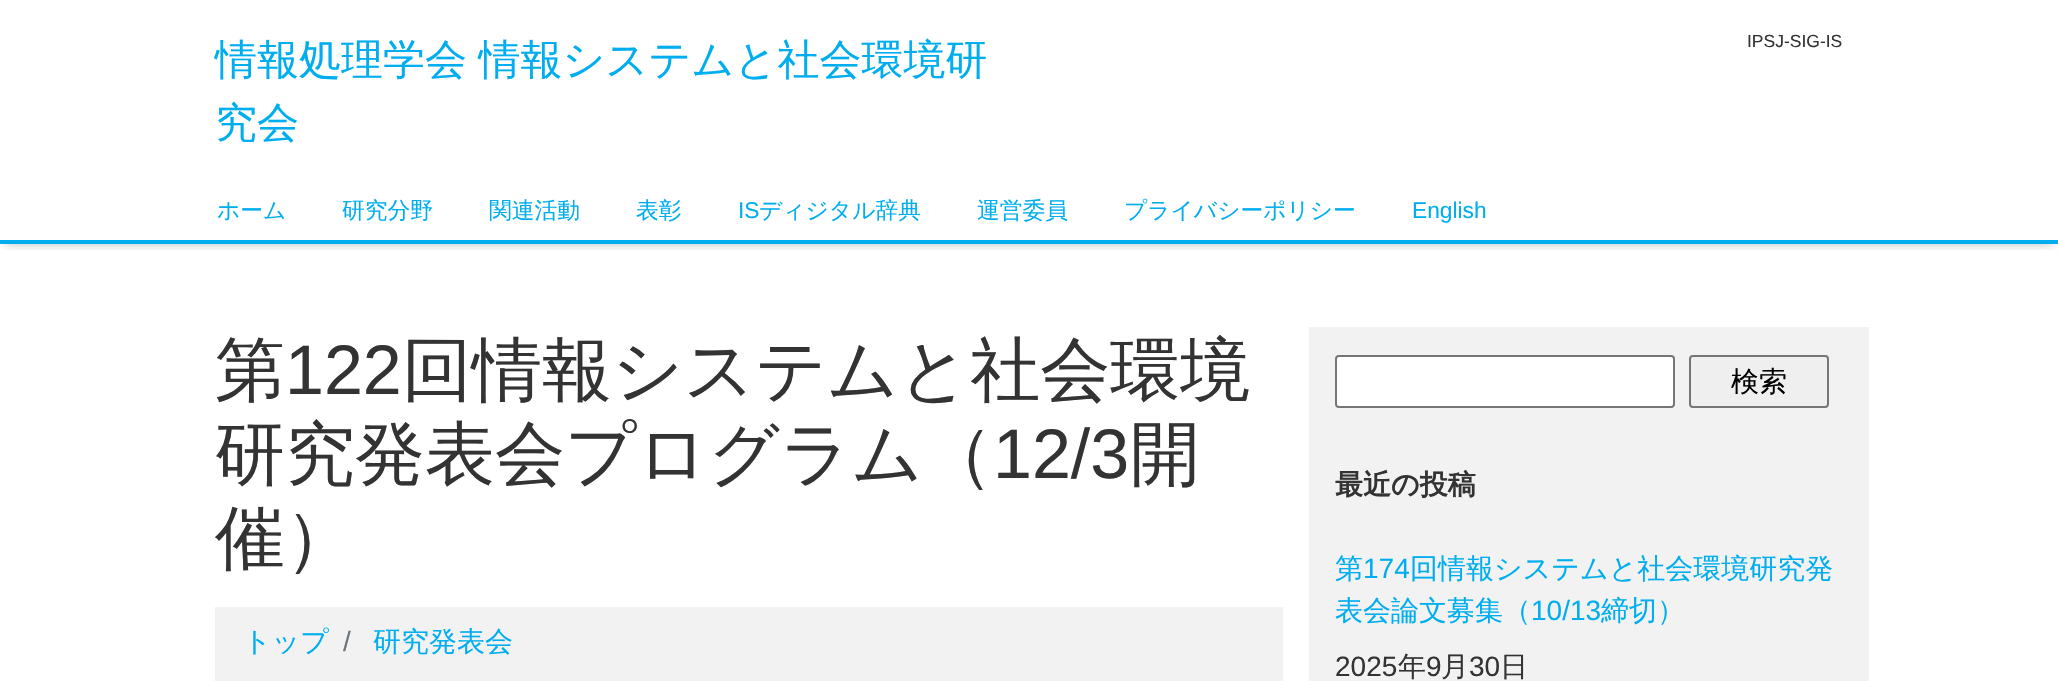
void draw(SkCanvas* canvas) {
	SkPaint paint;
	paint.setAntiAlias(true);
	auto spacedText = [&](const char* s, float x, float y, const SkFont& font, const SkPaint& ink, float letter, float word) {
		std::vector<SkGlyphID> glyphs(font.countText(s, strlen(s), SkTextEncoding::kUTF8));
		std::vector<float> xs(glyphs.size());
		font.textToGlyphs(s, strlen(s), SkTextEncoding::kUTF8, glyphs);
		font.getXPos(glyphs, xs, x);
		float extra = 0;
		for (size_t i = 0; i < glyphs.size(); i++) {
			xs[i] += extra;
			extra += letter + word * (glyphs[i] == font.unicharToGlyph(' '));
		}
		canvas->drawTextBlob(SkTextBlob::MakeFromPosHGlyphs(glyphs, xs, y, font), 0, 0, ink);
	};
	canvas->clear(0xffffffff);
	SkFont f1(fontMgr->matchFamilyStyle("WenQuanYi Zen Hei", SkFontStyle(500, SkFontStyle::kNormal_Width, SkFontStyle::kUpright_Slant)), 42);
	f1.setSubpixel(true);
	paint.setColor(0xff00aeef);
	spacedText("情報処理学会 情報システムと社会環境研", 215, 74, f1, paint, 0, -1);
	canvas->drawString("究会", 215, 137, f1, paint);
	SkFont f2(fontMgr->matchFamilyStyle("Liberation Sans", SkFontStyle::Normal()), 17.5);
	f2.setSubpixel(true);
	paint.setColor(0xff333333);
	canvas->drawString("IPSJ-SIG-IS", 1747, 47, f2, paint);
	canvas->save();
	canvas->clipRect(SkRect::MakeXYWH(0, 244, 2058, 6));
	paint.setColor(0x4d000000);
	paint.setMaskFilter(SkMaskFilter::MakeBlur(kNormal_SkBlurStyle, 5));
	canvas->drawRect(SkRect::MakeXYWH(5, 193, 2048, 50), paint);
	paint.setMaskFilter(nullptr);
	canvas->restore();
	paint.setColor(0xff00aeef);
	canvas->drawRect(SkRect::MakeXYWH(0, 240, 2058, 4), paint);
	SkFont f3(fontMgr->matchFamilyStyle("WenQuanYi Zen Hei", SkFontStyle(500, SkFontStyle::kNormal_Width, SkFontStyle::kUpright_Slant)), 22.75);
	f3.setSubpixel(true);
	canvas->drawString("ホーム", 217, 218, f3, paint);
	canvas->drawString("研究分野", 342, 218, f3, paint);
	canvas->drawString("関連活動", 489, 218, f3, paint);
	canvas->drawString("表彰", 636, 218, f3, paint);
	SkFont f4(fontMgr->matchFamilyStyle("Liberation Sans", SkFontStyle::Normal()), 22.75);
	f4.setSubpixel(true);
	canvas->drawString("IS", 738, 218, f4, paint);
	canvas->drawString("ディジタル辞典", 759, 218, f3, paint);
	canvas->drawString("運営委員", 977, 218, f3, paint);
	canvas->drawString("プライバシーポリシー", 1124, 218, f3, paint);
	canvas->drawString("English", 1412, 218, f4, paint);
	SkFont f5(fontMgr->matchFamilyStyle("WenQuanYi Zen Hei", SkFontStyle(500, SkFontStyle::kNormal_Width, SkFontStyle::kUpright_Slant)), 70);
	f5.setSubpixel(true);
	paint.setColor(0xff333333);
	canvas->drawString("第", 215, 394, f5, paint);
	SkFont f6(fontMgr->matchFamilyStyle("Liberation Sans", SkFontStyle::Normal()), 70);
	f6.setSubpixel(true);
	canvas->drawString("122", 285, 394, f6, paint);
	canvas->drawString("回情報システムと社会環境", 402, 394, f5, paint);
	canvas->drawString("研究発表会プログラム（", 215, 478, f5, paint);
	canvas->drawString("12/3", 993, 478, f6, paint);
	canvas->drawString("開", 1130, 478, f5, paint);
	canvas->drawString("催）", 215, 562, f5, paint);
	paint.setColor(0xfff2f2f2);
	canvas->drawRect(SkRect::MakeXYWH(215, 607, 1068, 74), paint);
	SkFont f7(fontMgr->matchFamilyStyle("WenQuanYi Zen Hei", SkFontStyle(500, SkFontStyle::kNormal_Width, SkFontStyle::kUpright_Slant)), 28);
	f7.setSubpixel(true);
	paint.setColor(0xff00aeef);
	canvas->drawString("トップ", 243, 651, f7, paint);
	SkFont f8(fontMgr->matchFamilyStyle("Liberation Sans", SkFontStyle::Normal()), 28);
	f8.setSubpixel(true);
	paint.setColor(0xff6c757d);
	canvas->drawString("/", 343, 651, f8, paint);
	paint.setColor(0xff00aeef);
	canvas->drawString("研究発表会", 373, 651, f7, paint);
	paint.setColor(0xfff2f2f2);
	canvas->drawRect(SkRect::MakeXYWH(1309, 327, 560, 354), paint);
	paint.setColor(0xffffffff);
	canvas->drawRoundRect(SkRect::MakeXYWH(1336, 356, 338, 51), 3, 3, paint);
	paint.setStroke(true);
	paint.setStrokeWidth(2);
	paint.setColor(0xff767676);
	canvas->drawRoundRect(SkRect::MakeXYWH(1336, 356, 338, 51), 3, 3, paint);
	paint.setStroke(false);
	paint.setColor(0xffefefef);
	canvas->drawRoundRect(SkRect::MakeXYWH(1690, 356, 138, 51), 3, 3, paint);
	paint.setStroke(true);
	paint.setColor(0xff767676);
	canvas->drawRoundRect(SkRect::MakeXYWH(1690, 356, 138, 51), 3, 3, paint);
	paint.setStroke(false);
	paint.setColor(0xff000000);
	canvas->drawString("検索", 1731, 391, f7, paint);
	SkFont f9(fontMgr->matchFamilyStyle("WenQuanYi Zen Hei", SkFontStyle::Bold()), 28);
	f9.setSubpixel(true);
	paint.setColor(0xff333333);
	canvas->drawString("最近の投稿", 1335, 494, f9, paint);
	paint.setColor(0xff00aeef);
	canvas->drawString("第", 1335, 578, f7, paint);
	canvas->drawString("174", 1363, 578, f8, paint);
	canvas->drawString("回情報システムと社会環境研究発", 1410, 578, f7, paint);
	canvas->drawString("表会論文募集（", 1335, 620, f7, paint);
	canvas->drawString("10/13", 1531, 620, f8, paint);
	canvas->drawString("締切）", 1601, 620, f7, paint);
	paint.setColor(0xff333333);
	canvas->drawString("2025", 1335, 676, f8, paint);
	canvas->drawString("年", 1398, 676, f7, paint);
	canvas->drawString("9", 1426, 676, f8, paint);
	canvas->drawString("月", 1441, 676, f7, paint);
	canvas->drawString("30", 1469, 676, f8, paint);
	canvas->drawString("日", 1500, 676, f7, paint);
}
